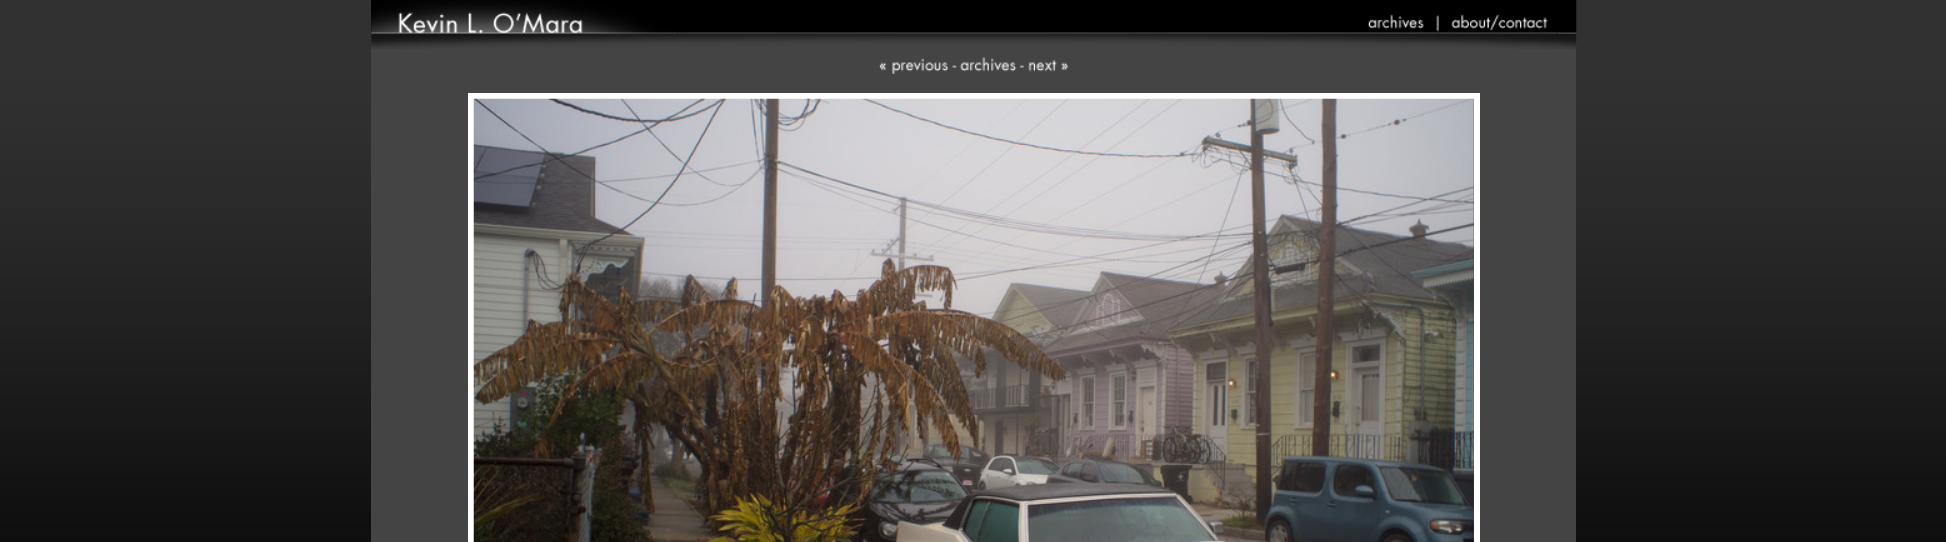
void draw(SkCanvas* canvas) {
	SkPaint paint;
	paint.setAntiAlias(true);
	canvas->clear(0xffffffff);
	canvas->drawImageRect(SkImages::DeferredFromEncodedData(SkData::MakeFromFileName("img1.png")), SkRect::MakeXYWH(0, 0, 1946, 542), SkSamplingOptions());
	paint.setColor(0xff000000);
	canvas->drawRect(SkRect::MakeXYWH(371, 0, 1187, 34), paint);
	canvas->drawImageRect(SkImages::DeferredFromEncodedData(SkData::MakeFromFileName("img2.png")), SkRect::MakeXYWH(371, 0, 307, 34), SkSamplingOptions());
	canvas->drawImageRect(SkImages::DeferredFromEncodedData(SkData::MakeFromFileName("img5.png")), SkRect::MakeXYWH(1315, 14, 124, 20), SkSamplingOptions());
	canvas->drawImageRect(SkImages::DeferredFromEncodedData(SkData::MakeFromFileName("img6.png")), SkRect::MakeXYWH(1438, 14, 120, 20), SkSamplingOptions());
	canvas->drawImageRect(SkImages::DeferredFromEncodedData(SkData::MakeFromFileName("img3.png")), SkRect::MakeXYWH(1557, 0, 20, 34), SkSamplingOptions());
	canvas->drawImageRect(SkImages::DeferredFromEncodedData(SkData::MakeFromFileName("img4.png")), SkRect::MakeXYWH(677, 32, 638, 2), SkSamplingOptions());
	paint.setColor(0xff444444);
	canvas->drawRect(SkRect::MakeXYWH(371, 34, 1205, 508), paint);
	canvas->drawImageRect(SkImages::DeferredFromEncodedData(SkData::MakeFromFileName("img7.png")), SkRect::MakeXYWH(371, 33, 1206, 16), SkSamplingOptions());
	canvas->drawImageRect(SkImages::DeferredFromEncodedData(SkData::MakeFromFileName("img8.png")), SkRect::MakeXYWH(879, 58, 78, 16), SkSamplingOptions());
	canvas->drawImageRect(SkImages::DeferredFromEncodedData(SkData::MakeFromFileName("img9.png")), SkRect::MakeXYWH(960, 57, 57, 15), SkSamplingOptions());
	canvas->drawImageRect(SkImages::DeferredFromEncodedData(SkData::MakeFromFileName("img10.png")), SkRect::MakeXYWH(1020, 59, 49, 13), SkSamplingOptions());
	paint.setStroke(true);
	paint.setStrokeWidth(6);
	paint.setColor(0xffffffff);
	canvas->drawRect(SkRect::MakeXYWH(471, 96, 1006, 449), paint);
	canvas->drawImageRect(SkImages::DeferredFromEncodedData(SkData::MakeFromFileName("img11.png")), SkRect::MakeXYWH(473, 98, 1001, 444), SkSamplingOptions());
}
